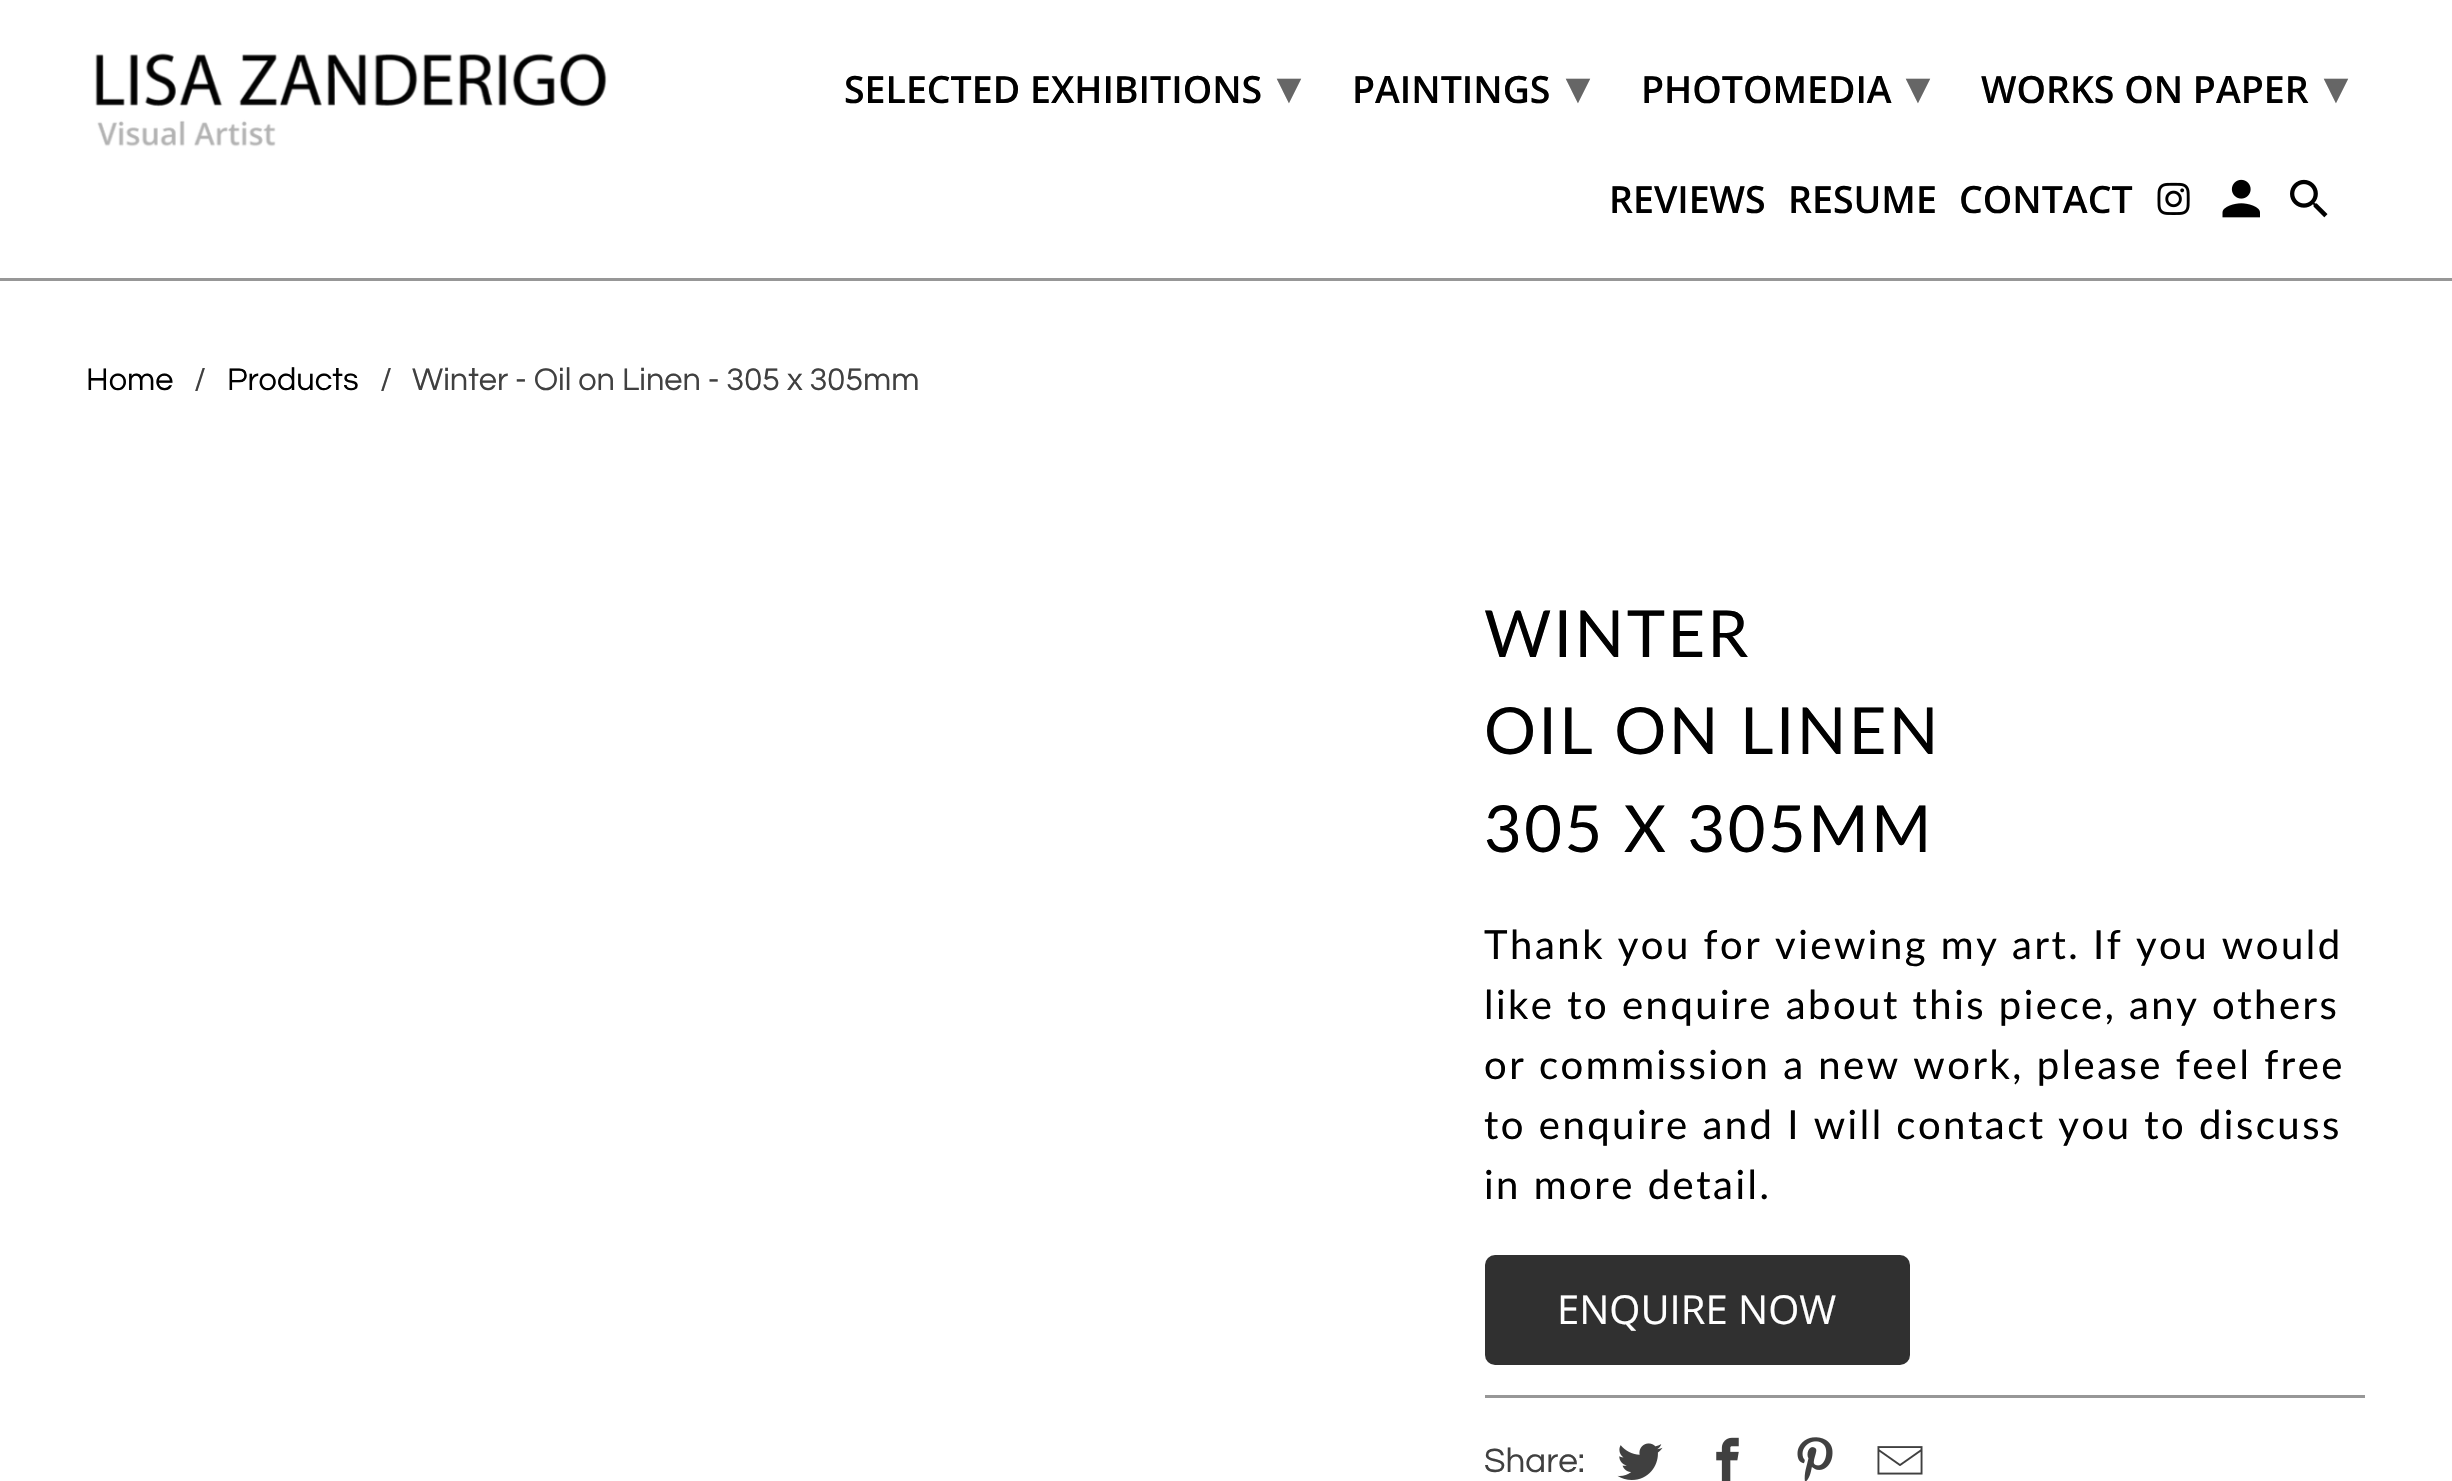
void draw(SkCanvas* canvas) {
	SkPaint paint;
	paint.setAntiAlias(true);
	auto spacedText = [&](const char* s, float x, float y, const SkFont& font, const SkPaint& ink, float letter, float word) {
		std::vector<SkGlyphID> glyphs(font.countText(s, strlen(s), SkTextEncoding::kUTF8));
		std::vector<float> xs(glyphs.size());
		font.textToGlyphs(s, strlen(s), SkTextEncoding::kUTF8, glyphs);
		font.getXPos(glyphs, xs, x);
		float extra = 0;
		for (size_t i = 0; i < glyphs.size(); i++) {
			xs[i] += extra;
			extra += letter + word * (glyphs[i] == font.unicharToGlyph(' '));
		}
		canvas->drawTextBlob(SkTextBlob::MakeFromPosHGlyphs(glyphs, xs, y, font), 0, 0, ink);
	};
	canvas->clear(0xffffffff);
	paint.setColor(0xff979797);
	canvas->drawRect(SkRect::MakeXYWH(0, 278, 2452, 3), paint);
	canvas->drawImageRect(SkImages::DeferredFromEncodedData(SkData::MakeFromFileName("img1.png")), SkRect::MakeXYWH(95, 53, 512, 94), SkSamplingOptions());
	SkFont f1(fontMgr->matchFamilyStyle("Open Sans", SkFontStyle(600, SkFontStyle::kNormal_Width, SkFontStyle::kUpright_Slant)), 37.5);
	f1.setSubpixel(true);
	paint.setColor(0xff000000);
	canvas->drawString("SELECTED EXHIBITIONS", 844, 103, f1, paint);
	SkFont f2(fontMgr->matchFamilyStyle("DejaVu Sans", SkFontStyle::Bold()), 45);
	f2.setSubpixel(true);
	paint.setColor(0xff666666);
	canvas->drawString("▾", 1277, 103, f2, paint);
	paint.setColor(0xff000000);
	canvas->drawString("PAINTINGS", 1352, 103, f1, paint);
	paint.setColor(0xff666666);
	canvas->drawString("▾", 1566, 103, f2, paint);
	paint.setColor(0xff000000);
	canvas->drawString("PHOTOMEDIA", 1641, 103, f1, paint);
	paint.setColor(0xff666666);
	canvas->drawString("▾", 1906, 103, f2, paint);
	paint.setColor(0xff000000);
	canvas->drawString("WORKS ON PAPER", 1981, 103, f1, paint);
	paint.setColor(0xff666666);
	canvas->drawString("▾", 2324, 103, f2, paint);
	paint.setColor(0xff000000);
	canvas->drawString("REVIEWS", 1609, 213, f1, paint);
	canvas->drawString("RESUME", 1788, 213, f1, paint);
	canvas->drawString("CONTACT", 1959, 213, f1, paint);
	canvas->drawImageRect(SkImages::DeferredFromEncodedData(SkData::MakeFromFileName("img2.png")), SkRect::MakeXYWH(2157, 182, 33, 33), SkSamplingOptions());
	canvas->drawImageRect(SkImages::DeferredFromEncodedData(SkData::MakeFromFileName("img3.png")), SkRect::MakeXYWH(2222, 179, 38, 39), SkSamplingOptions());
	canvas->drawImageRect(SkImages::DeferredFromEncodedData(SkData::MakeFromFileName("img4.png")), SkRect::MakeXYWH(2290, 179, 38, 39), SkSamplingOptions());
	SkFont f3(fontMgr->matchFamilyStyle("Questrial", SkFontStyle::Normal()), 32.5);
	f3.setSubpixel(true);
	canvas->drawString("Home", 86, 390, f3, paint);
	paint.setColor(0xff404040);
	canvas->drawString("/", 194, 390, f3, paint);
	paint.setColor(0xff000000);
	canvas->drawString("Products", 227, 390, f3, paint);
	paint.setColor(0xff404040);
	canvas->drawString("/", 380, 390, f3, paint);
	canvas->drawString("Winter - Oil on Linen - 305 x 305mm", 412, 390, f3, paint);
	SkFont f4(fontMgr->matchFamilyStyle("Lato", SkFontStyle::Normal()), 65);
	f4.setSubpixel(true);
	paint.setColor(0xff000000);
	spacedText("WINTER", 1484, 657, f4, paint, 2.5, 0);
	spacedText("OIL ON LINEN", 1484, 754, f4, paint, 2.5, 0);
	spacedText("305 X 305MM", 1484, 852, f4, paint, 2.5, 0);
	SkFont f5(fontMgr->matchFamilyStyle("Lato", SkFontStyle::Normal()), 40);
	f5.setSubpixel(true);
	spacedText("Thank you for viewing my art. If you would", 1484, 959, f5, paint, 2.5, 0);
	spacedText("like to enquire about this piece, any others", 1484, 1019, f5, paint, 2.5, 0);
	spacedText("or commission a new work, please feel free", 1484, 1079, f5, paint, 2.5, 0);
	spacedText("to enquire and I will contact you to discuss", 1484, 1139, f5, paint, 2.5, 0);
	spacedText("in more detail.", 1484, 1199, f5, paint, 2.5, 0);
	paint.setColor(0xff303030);
	canvas->drawRoundRect(SkRect::MakeXYWH(1485, 1255, 425, 110), 10, 10, paint);
	SkFont f6(fontMgr->matchFamilyStyle("Open Sans", SkFontStyle::Normal()), 40);
	f6.setSubpixel(true);
	paint.setColor(0xffffffff);
	canvas->drawString("ENQUIRE NOW", 1557, 1324, f6, paint);
	paint.setColor(0xff979797);
	canvas->drawRect(SkRect::MakeXYWH(1485, 1395, 880, 3), paint);
	SkFont f7(fontMgr->matchFamilyStyle("Questrial", SkFontStyle::Normal()), 35);
	f7.setSubpixel(true);
	paint.setColor(0xff404040);
	canvas->drawString("Share:", 1484, 1472, f7, paint);
	canvas->drawImageRect(SkImages::DeferredFromEncodedData(SkData::MakeFromFileName("img5.png")), SkRect::MakeXYWH(1617, 1443, 46, 37), SkSamplingOptions());
	canvas->drawImageRect(SkImages::DeferredFromEncodedData(SkData::MakeFromFileName("img6.png")), SkRect::MakeXYWH(1716, 1437, 23, 44), SkSamplingOptions());
	canvas->drawImageRect(SkImages::DeferredFromEncodedData(SkData::MakeFromFileName("img7.png")), SkRect::MakeXYWH(1797, 1437, 36, 44), SkSamplingOptions());
	canvas->drawImageRect(SkImages::DeferredFromEncodedData(SkData::MakeFromFileName("img8.png")), SkRect::MakeXYWH(1877, 1446, 46, 29), SkSamplingOptions());
}
